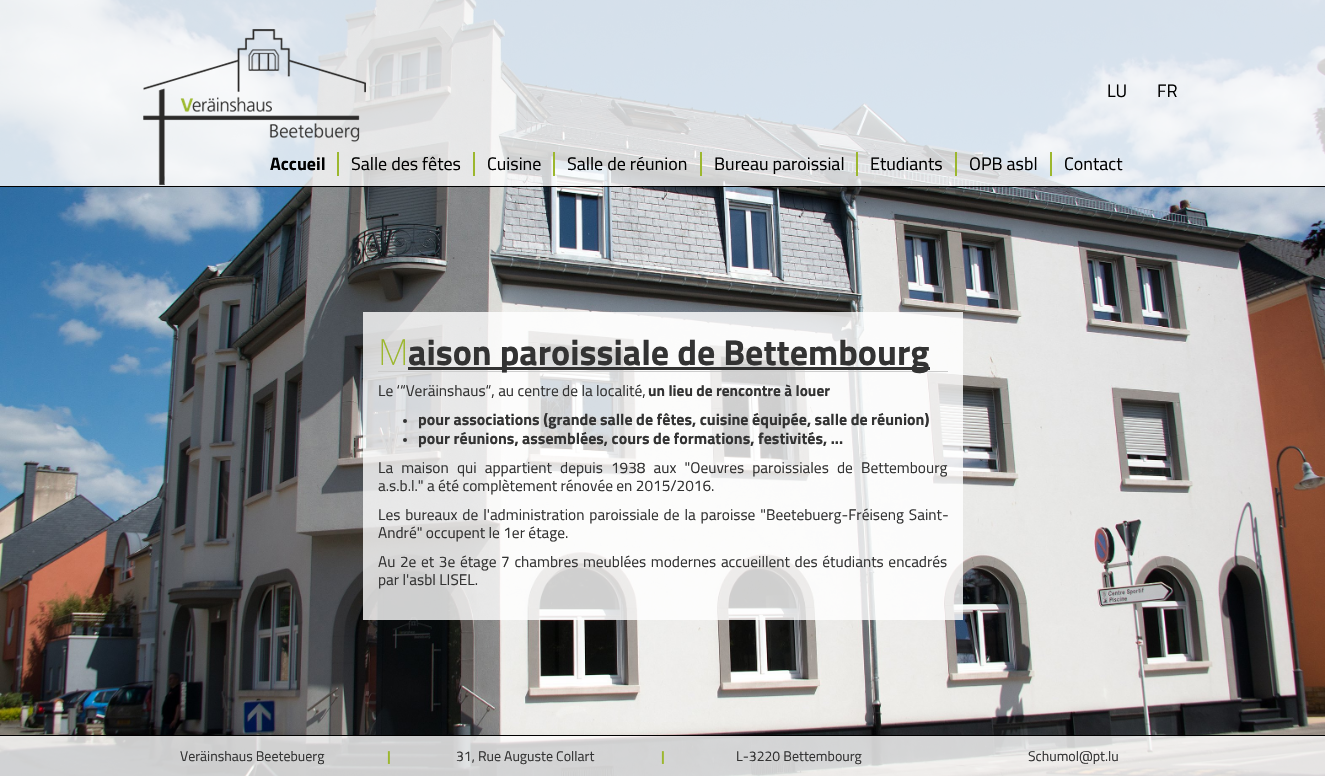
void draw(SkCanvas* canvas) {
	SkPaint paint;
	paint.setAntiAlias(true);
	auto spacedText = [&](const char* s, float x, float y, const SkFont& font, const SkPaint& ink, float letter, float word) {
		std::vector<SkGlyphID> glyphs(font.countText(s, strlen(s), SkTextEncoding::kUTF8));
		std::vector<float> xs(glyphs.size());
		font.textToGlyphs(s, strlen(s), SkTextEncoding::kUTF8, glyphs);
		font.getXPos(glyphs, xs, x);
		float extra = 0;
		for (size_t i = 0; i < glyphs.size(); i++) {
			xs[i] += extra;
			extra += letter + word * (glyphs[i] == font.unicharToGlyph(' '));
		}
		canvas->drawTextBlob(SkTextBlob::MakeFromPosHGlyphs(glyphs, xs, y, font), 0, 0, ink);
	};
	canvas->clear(0xffffffff);
	canvas->drawImageRect(SkImages::DeferredFromEncodedData(SkData::MakeFromFileName("img1.png")), SkRect::MakeXYWH(0, 0, 1325, 776), SkSamplingOptions());
	paint.setColor(0xccffffff);
	canvas->drawRect(SkRect::MakeXYWH(0, 0, 1325, 186), paint);
	canvas->drawImageRect(SkImages::DeferredFromEncodedData(SkData::MakeFromFileName("img2.png")), SkRect::MakeXYWH(143, 29, 223, 156), SkSamplingOptions());
	SkFont f1(fontMgr->matchFamilyStyle("Titillium Web", SkFontStyle::Normal()), 18);
	f1.setSubpixel(true);
	paint.setColor(0xff000000);
	canvas->drawString("LU", 1107, 97, f1, paint);
	canvas->drawString("FR", 1157, 97, f1, paint);
	SkFont f2(fontMgr->matchFamilyStyle("Titillium Web", SkFontStyle::Bold()), 18);
	f2.setSubpixel(true);
	canvas->drawString("Accueil", 270, 170, f2, paint);
	paint.setColor(0xff9cb72e);
	canvas->drawRect(SkRect::MakeXYWH(337, 152, 2, 24), paint);
	paint.setColor(0xff000000);
	canvas->drawString("Salle des fêtes", 351, 170, f1, paint);
	paint.setColor(0xff9cb72e);
	canvas->drawRect(SkRect::MakeXYWH(473, 152, 2, 24), paint);
	paint.setColor(0xff000000);
	canvas->drawString("Cuisine", 487, 170, f1, paint);
	paint.setColor(0xff9cb72e);
	canvas->drawRect(SkRect::MakeXYWH(553, 152, 2, 24), paint);
	paint.setColor(0xff000000);
	canvas->drawString("Salle de réunion", 567, 170, f1, paint);
	paint.setColor(0xff9cb72e);
	canvas->drawRect(SkRect::MakeXYWH(700, 152, 2, 24), paint);
	paint.setColor(0xff000000);
	canvas->drawString("Bureau paroissial", 714, 170, f1, paint);
	paint.setColor(0xff9cb72e);
	canvas->drawRect(SkRect::MakeXYWH(856, 152, 2, 24), paint);
	paint.setColor(0xff000000);
	canvas->drawString("Etudiants", 870, 170, f1, paint);
	paint.setColor(0xff9cb72e);
	canvas->drawRect(SkRect::MakeXYWH(955, 152, 2, 24), paint);
	paint.setColor(0xff000000);
	canvas->drawString("OPB asbl", 969, 170, f1, paint);
	paint.setColor(0xff9cb72e);
	canvas->drawRect(SkRect::MakeXYWH(1050, 152, 2, 24), paint);
	paint.setColor(0xff000000);
	canvas->drawString("Contact", 1064, 170, f1, paint);
	paint.setColor(0xccffffff);
	canvas->drawRect(SkRect::MakeXYWH(363, 312, 600, 308), paint);
	paint.setColor(0xffcccccc);
	canvas->drawRect(SkRect::MakeXYWH(378, 371, 570, 1), paint);
	SkFont f3(fontMgr->matchFamilyStyle("Noto Sans", SkFontStyle(200, SkFontStyle::kNormal_Width, SkFontStyle::kUpright_Slant)), 36);
	f3.setSubpixel(true);
	paint.setColor(0xff9cb72e);
	canvas->drawString("M", 378, 365, f3, paint);
	paint.setColor(0xff333333);
	canvas->drawRect(SkRect::MakeXYWH(408, 367, 522, 3), paint);
	SkFont f4(fontMgr->matchFamilyStyle("Titillium Web", SkFontStyle::Bold()), 36);
	f4.setSubpixel(true);
	canvas->drawString("aison paroissiale de Bettembourg", 408, 365, f4, paint);
	SkFont f5(fontMgr->matchFamilyStyle("Titillium Web", SkFontStyle::Normal()), 15.4);
	f5.setSubpixel(true);
	canvas->drawString("Le ‘“Veräinshaus“, au centre de la localité,", 378, 396, f5, paint);
	SkFont f6(fontMgr->matchFamilyStyle("Titillium Web", SkFontStyle::Bold()), 15.4);
	f6.setSubpixel(true);
	canvas->drawString("un lieu de rencontre à louer", 648, 396, f6, paint);
	canvas->drawCircle(405, 421, 2, paint);
	SkFont f7(fontMgr->matchFamilyStyle("Titillium Web", SkFontStyle::Bold()), 16);
	f7.setSubpixel(true);
	canvas->drawString("pour associations (grande salle de fêtes, cuisine équipée, salle de réunion)", 418, 425, f7, paint);
	canvas->drawCircle(405, 440, 2, paint);
	canvas->drawString("pour réunions, assemblées, cours de formations, festivités, ...", 418, 444, f7, paint);
	spacedText("La maison qui appartient depuis 1938 aux \"Oeuvres paroissiales de Bettembourg", 378, 473, f5, paint, 0, 4.75);
	canvas->drawString("a.s.b.l.\" a été complètement rénovée en 2015/2016.", 378, 491, f5, paint);
	spacedText("Les bureaux de l'administration paroissiale de la paroisse \"Beetebuerg-Fréiseng Saint-", 378, 520, f5, paint, 0, 1.5);
	canvas->drawString("André\" occupent le 1er étage.", 378, 538, f5, paint);
	spacedText("Au 2e et 3e étage 7 chambres meublées modernes accueillent des étudiants encadrés", 378, 567, f5, paint, 0, 1.25);
	canvas->drawString("par l'asbl LISEL.", 378, 585, f5, paint);
	paint.setColor(0xccffffff);
	canvas->drawRect(SkRect::MakeXYWH(0, 736, 1325, 40), paint);
	SkFont f8(fontMgr->matchFamilyStyle("Titillium Web", SkFontStyle::Normal()), 14);
	f8.setSubpixel(true);
	paint.setColor(0xff333333);
	canvas->drawString("Veräinshaus Beetebuerg", 180, 761, f8, paint);
	SkFont f9(fontMgr->matchFamilyStyle("Titillium Web", SkFontStyle::Bold()), 14);
	f9.setSubpixel(true);
	paint.setColor(0xff9cb72e);
	canvas->drawString("|", 387, 761, f9, paint);
	paint.setColor(0xff333333);
	canvas->drawString("31, Rue Auguste Collart", 456, 761, f8, paint);
	paint.setColor(0xff9cb72e);
	canvas->drawString("|", 661, 761, f9, paint);
	paint.setColor(0xff333333);
	canvas->drawString("L-3220 Bettembourg", 736, 761, f8, paint);
	canvas->drawString("Schumol@pt.lu", 1028, 761, f8, paint);
}
